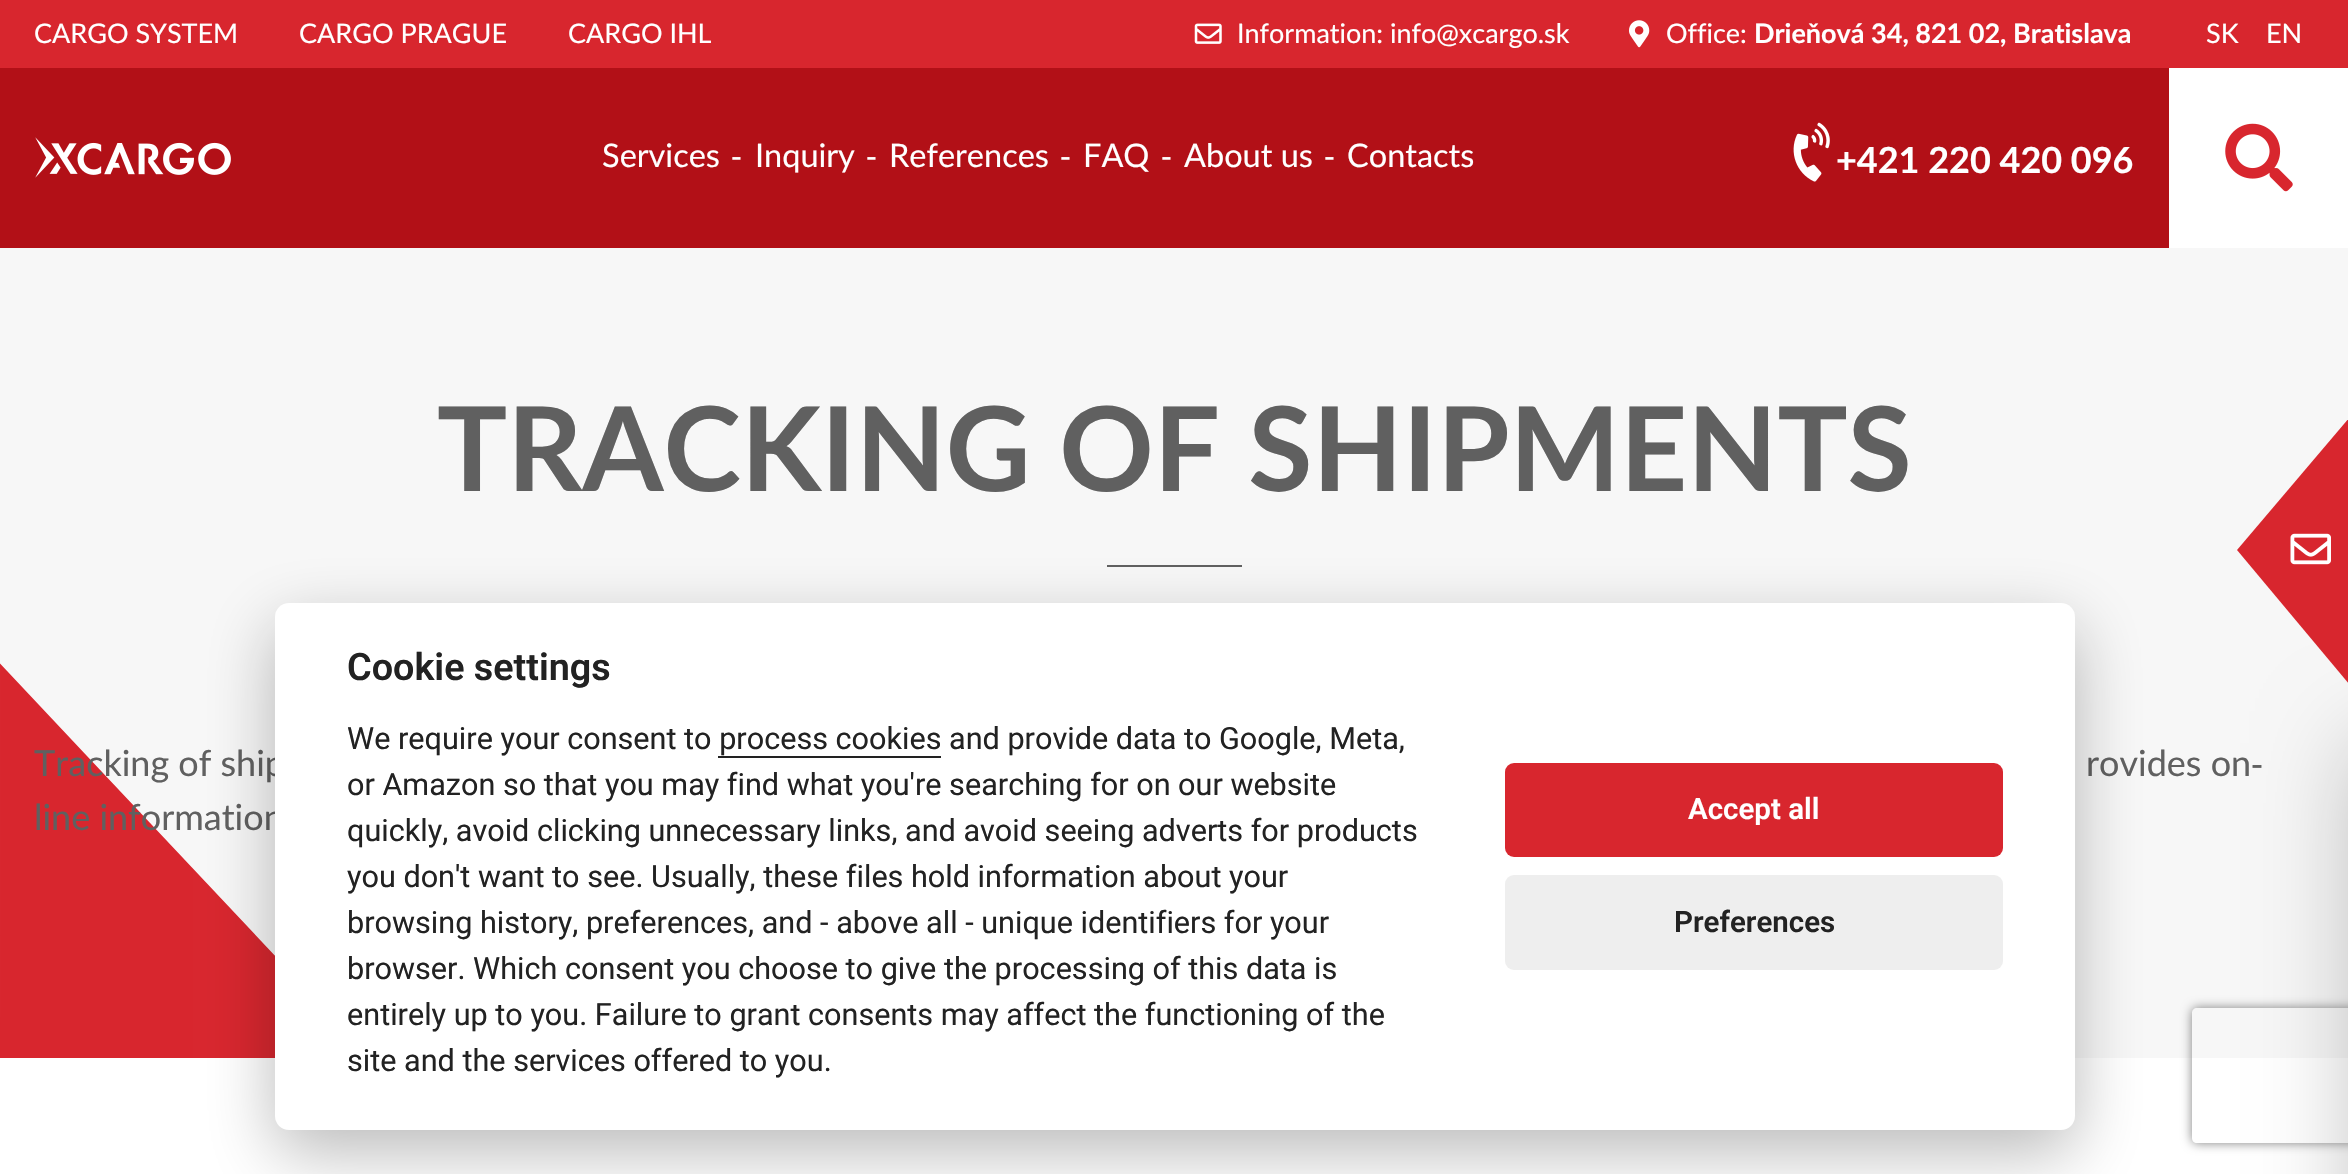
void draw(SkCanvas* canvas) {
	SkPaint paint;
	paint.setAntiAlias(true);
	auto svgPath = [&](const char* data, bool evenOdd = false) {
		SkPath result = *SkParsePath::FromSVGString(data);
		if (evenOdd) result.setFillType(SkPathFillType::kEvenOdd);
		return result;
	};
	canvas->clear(0xfff7f7f7);
	canvas->drawImageRect(SkImages::DeferredFromEncodedData(SkData::MakeFromFileName("img1.png")), SkRect::MakeXYWH(0, 663, 275, 395), SkSamplingOptions());
	paint.setColor(0xffd8262e);
	canvas->drawRect(SkRect::MakeXYWH(0, 0, 2348, 68), paint);
	SkFont f1(fontMgr->matchFamilyStyle("Lato", SkFontStyle::Normal()), 27);
	f1.setSubpixel(true);
	paint.setColor(0xffffffff);
	canvas->drawString("CARGO SYSTEM", 34, 43, f1, paint);
	canvas->drawString("CARGO PRAGUE", 299, 43, f1, paint);
	canvas->drawString("CARGO IHL", 568, 43, f1, paint);
	canvas->drawImageRect(SkImages::DeferredFromEncodedData(SkData::MakeFromFileName("img2.png")), SkRect::MakeXYWH(1194, 23, 28, 21), SkSamplingOptions());
	canvas->drawString("Information: info@xcargo.sk", 1237, 43, f1, paint);
	canvas->drawImageRect(SkImages::DeferredFromEncodedData(SkData::MakeFromFileName("img3.png")), SkRect::MakeXYWH(1629, 20, 21, 28), SkSamplingOptions());
	canvas->drawString("Office:", 1666, 43, f1, paint);
	SkFont f2(fontMgr->matchFamilyStyle("Lato", SkFontStyle::Bold()), 27);
	f2.setSubpixel(true);
	canvas->drawString("Drieňová 34, 821 02, Bratislava", 1754, 43, f2, paint);
	canvas->drawString("SK", 2206, 43, f1, paint);
	canvas->drawString("EN", 2266, 43, f1, paint);
	paint.setColor(0xffb21017);
	canvas->drawRect(SkRect::MakeXYWH(0, 68, 2169, 180), paint);
	canvas->drawImageRect(SkImages::DeferredFromEncodedData(SkData::MakeFromFileName("img4.png")), SkRect::MakeXYWH(35, 137, 196, 41), SkSamplingOptions());
	SkFont f3(fontMgr->matchFamilyStyle("Lato", SkFontStyle::Normal()), 32.5);
	f3.setSubpixel(true);
	paint.setColor(0xffffffff);
	canvas->drawString("Services", 602, 167, f3, paint);
	SkFont f4(fontMgr->matchFamilyStyle("Liberation Sans", SkFontStyle::Normal()), 32.5);
	f4.setSubpixel(true);
	canvas->drawString("-", 731, 167, f4, paint);
	canvas->drawString("Inquiry", 755, 167, f3, paint);
	canvas->drawString("-", 866, 167, f4, paint);
	canvas->drawString("References", 889, 167, f3, paint);
	canvas->drawString("-", 1060, 167, f4, paint);
	canvas->drawString("FAQ", 1083, 167, f3, paint);
	canvas->drawString("-", 1161, 167, f4, paint);
	canvas->drawString("About us", 1184, 167, f3, paint);
	canvas->drawString("-", 1324, 167, f4, paint);
	canvas->drawString("Contacts", 1347, 167, f3, paint);
	canvas->drawImageRect(SkImages::DeferredFromEncodedData(SkData::MakeFromFileName("img5.png")), SkRect::MakeXYWH(1793, 122, 37, 60), SkSamplingOptions());
	SkFont f5(fontMgr->matchFamilyStyle("Lato", SkFontStyle::Bold()), 36);
	f5.setSubpixel(true);
	canvas->drawString("+421 220 420 096", 1836, 173, f5, paint);
	canvas->drawRect(SkRect::MakeXYWH(2169, 68, 179, 180), paint);
	canvas->drawImageRect(SkImages::DeferredFromEncodedData(SkData::MakeFromFileName("img6.png")), SkRect::MakeXYWH(2225, 123, 68, 69), SkSamplingOptions());
	SkFont f6(fontMgr->matchFamilyStyle("Lato", SkFontStyle::Bold()), 117);
	f6.setSubpixel(true);
	paint.setColor(0xff606060);
	canvas->drawString("TRACKING OF SHIPMENTS", 437, 491, f6, paint);
	canvas->drawRect(SkRect::MakeXYWH(1107, 565, 135, 2), paint);
	SkFont f7(fontMgr->matchFamilyStyle("Lato", SkFontStyle::Normal()), 36);
	f7.setSubpixel(true);
	canvas->drawString("Tracking of ship", 34, 776, f7, paint);
	canvas->drawString("rovides on", 2086, 776, f7, paint);
	SkFont f8(fontMgr->matchFamilyStyle("Liberation Sans", SkFontStyle::Normal()), 36);
	f8.setSubpixel(true);
	canvas->drawString("-", 2251, 776, f8, paint);
	canvas->drawString("line information", 34, 830, f7, paint);
	paint.setColor(0xffffffff);
	canvas->drawRect(SkRect::MakeXYWH(0, 1058, 2348, 116), paint);
	paint.setColor(0x47020203);
	paint.setMaskFilter(SkMaskFilter::MakeBlur(kNormal_SkBlurStyle, 34));
	canvas->drawRoundRect(SkRect::MakeXYWH(275, 626, 1800, 526), 14, 14, paint);
	paint.setMaskFilter(nullptr);
	paint.setColor(0xffffffff);
	canvas->drawRoundRect(SkRect::MakeXYWH(275, 603, 1800, 527), 14, 14, paint);
	SkFont f9(fontMgr->matchFamilyStyle("Roboto", SkFontStyle(600, SkFontStyle::kNormal_Width, SkFontStyle::kUpright_Slant)), 37.75);
	f9.setSubpixel(true);
	paint.setColor(0xff222222);
	canvas->drawString("Cookie settings", 347, 680, f9, paint);
	SkFont f10(fontMgr->matchFamilyStyle("Roboto", SkFontStyle::Normal()), 30.6);
	f10.setSubpixel(true);
	canvas->drawString("We require your consent to process cookies and provide data to Google, Meta,", 347, 749, f10, paint);
	canvas->drawRect(SkRect::MakeXYWH(718, 756, 223, 2), paint);
	canvas->drawString("or Amazon so that you may find what you're searching for on our website", 347, 795, f10, paint);
	canvas->drawString("quickly, avoid clicking unnecessary links, and avoid seeing adverts for products", 347, 841, f10, paint);
	canvas->drawString("you don't want to see. Usually, these files hold information about your", 347, 887, f10, paint);
	canvas->drawString("browsing history, preferences, and - above all - unique identifiers for your", 347, 933, f10, paint);
	canvas->drawString("browser. Which consent you choose to give the processing of this data is", 347, 979, f10, paint);
	canvas->drawString("entirely up to you. Failure to grant consents may affect the functioning of the", 347, 1025, f10, paint);
	canvas->drawString("site and the services offered to you.", 347, 1071, f10, paint);
	paint.setColor(0xffd8262e);
	canvas->drawRoundRect(SkRect::MakeXYWH(1505, 763, 498, 94), 9, 9, paint);
	SkFont f11(fontMgr->matchFamilyStyle("Roboto", SkFontStyle(600, SkFontStyle::kNormal_Width, SkFontStyle::kUpright_Slant)), 29.5);
	f11.setSubpixel(true);
	paint.setColor(0xffffffff);
	canvas->drawString("Accept all", 1688, 819, f11, paint);
	paint.setColor(0xffeeeeee);
	canvas->drawRoundRect(SkRect::MakeXYWH(1505, 875, 498, 95), 9, 9, paint);
	paint.setColor(0xff222222);
	canvas->drawString("Preferences", 1674, 932, f11, paint);
	paint.setColor(0x40000000);
	paint.setMaskFilter(SkMaskFilter::MakeBlur(kNormal_SkBlurStyle, 48.5));
	canvas->drawRect(SkRect::MakeXYWH(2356, 743, 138, 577), paint);
	paint.setMaskFilter(nullptr);
	paint.setColor(0xffd8262e);
	canvas->drawPath(svgPath("M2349 418V684L2237 550Z"), paint);
	canvas->drawImageRect(SkImages::DeferredFromEncodedData(SkData::MakeFromFileName("img7.png")), SkRect::MakeXYWH(2290, 533, 41, 32), SkSamplingOptions());
	canvas->save();
	canvas->clipPath(svgPath("M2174 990H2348V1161H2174ZM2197 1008H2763C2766 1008 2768 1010 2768 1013V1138C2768 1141 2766 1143 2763 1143H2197C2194 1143 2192 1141 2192 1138V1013C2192 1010 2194 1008 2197 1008Z", true), true);
	paint.setColor(0xff808080);
	paint.setMaskFilter(SkMaskFilter::MakeBlur(kNormal_SkBlurStyle, 5.5));
	canvas->drawRoundRect(SkRect::MakeXYWH(2192, 1008, 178, 135), 5, 5, paint);
	paint.setMaskFilter(nullptr);
	canvas->restore();
}
